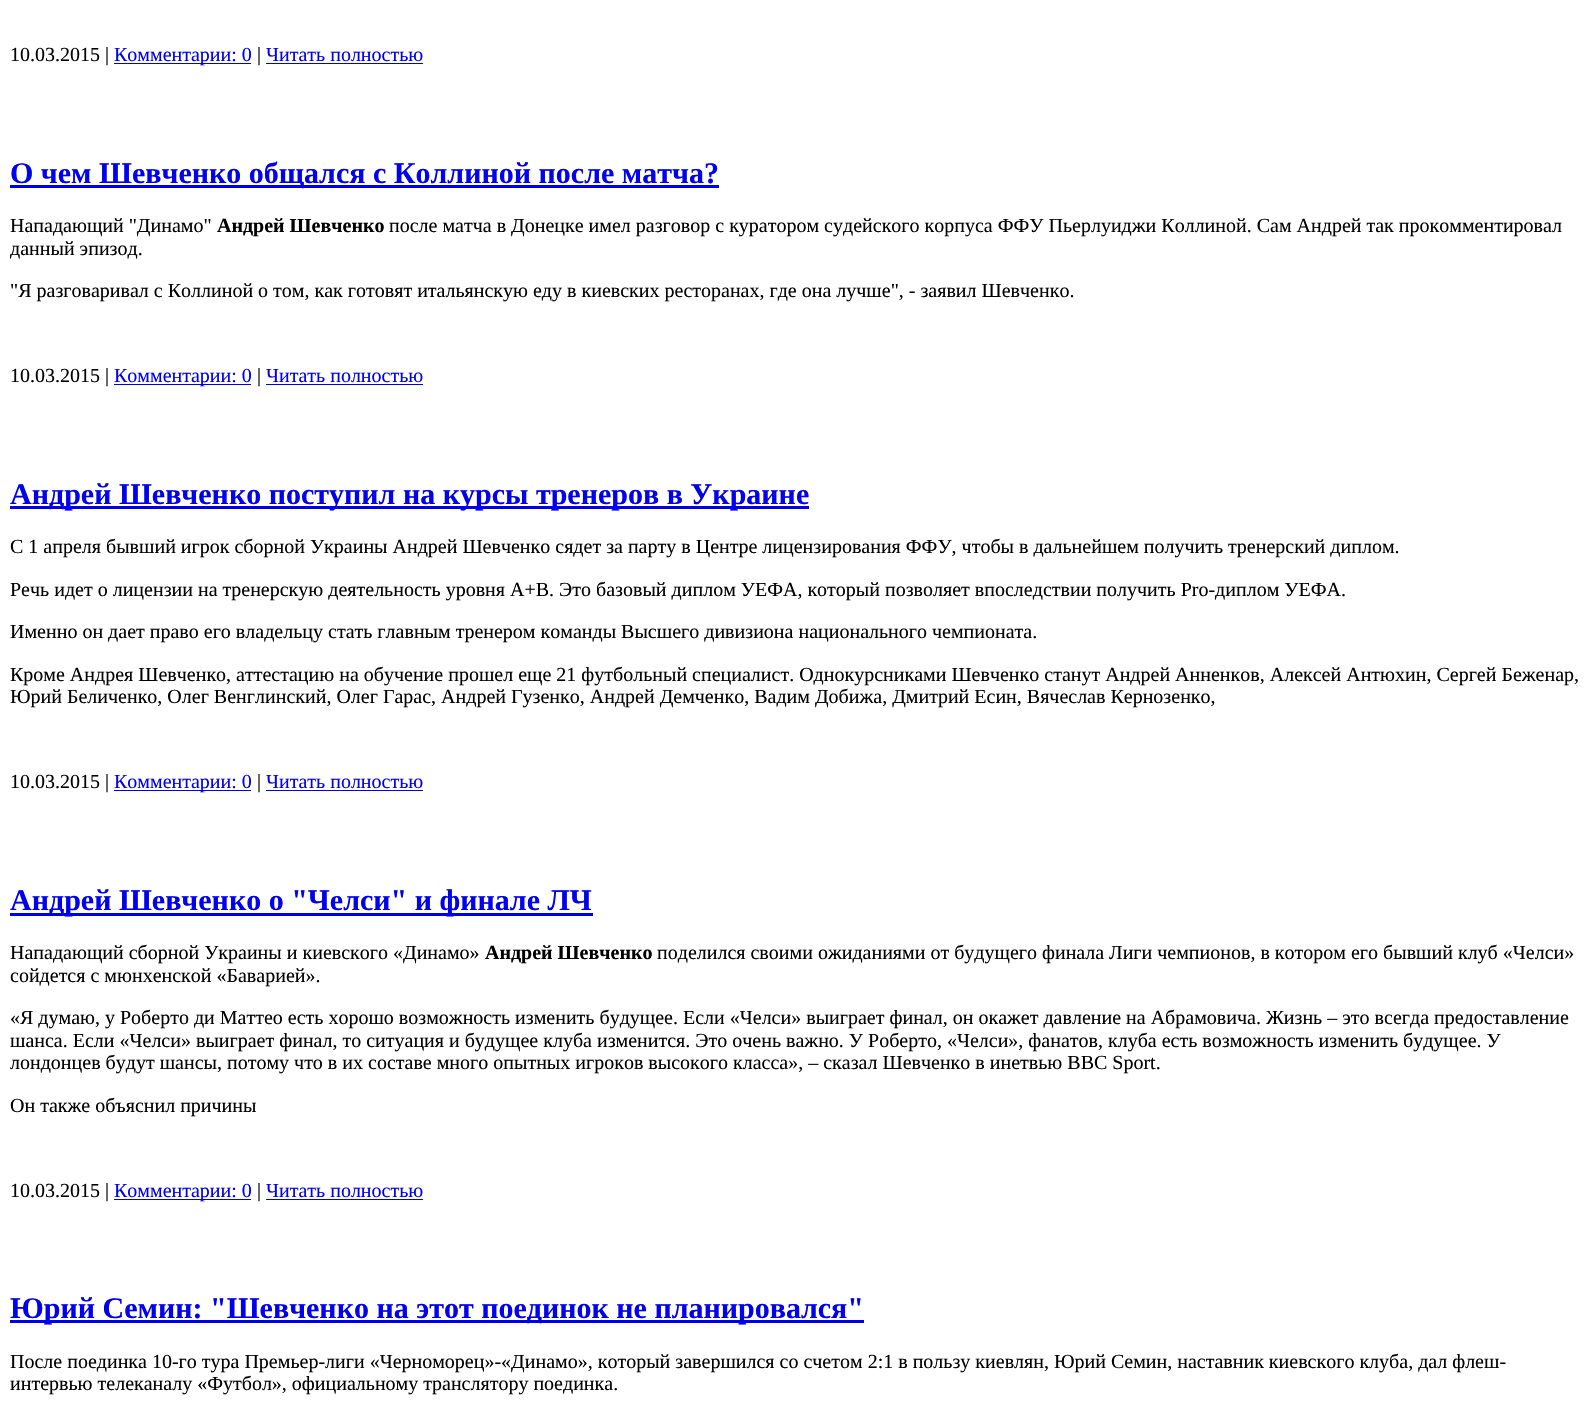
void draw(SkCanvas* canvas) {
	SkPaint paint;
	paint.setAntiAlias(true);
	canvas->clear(0xffffffff);
	SkFont f1(fontMgr->matchFamilyStyle("Liberation Serif", SkFontStyle::Normal()), 20);
	f1.setSubpixel(true);
	paint.setColor(0xff000000);
	canvas->drawString("10.03.2015 |", 10, 61, f1, paint);
	paint.setColor(0xff0000ee);
	canvas->drawRect(SkRect::MakeXYWH(114, 63, 137, 1), paint);
	canvas->drawString("Комментарии: 0", 114, 61, f1, paint);
	paint.setColor(0xff000000);
	canvas->drawString("|", 257, 61, f1, paint);
	paint.setColor(0xff0000ee);
	canvas->drawString("Читать полностью", 266, 61, f1, paint);
	canvas->drawRect(SkRect::MakeXYWH(266, 63, 157, 1), paint);
	canvas->drawRect(SkRect::MakeXYWH(10, 185, 709, 3), paint);
	SkFont f2(fontMgr->matchFamilyStyle("Liberation Serif", SkFontStyle::Bold()), 30);
	f2.setSubpixel(true);
	canvas->drawString("О чем Шевченко общался с Коллиной после матча?", 10, 183, f2, paint);
	paint.setColor(0xff000000);
	canvas->drawString("Нападающий \"Динамо\"", 10, 232, f1, paint);
	SkFont f3(fontMgr->matchFamilyStyle("Liberation Serif", SkFontStyle::Bold()), 20);
	f3.setSubpixel(true);
	canvas->drawString("Андрей Шевченко", 217, 232, f3, paint);
	canvas->drawString("после матча в Донецке имел разговор с куратором судейского корпуса ФФУ Пьерлуиджи Коллиной. Сам Андрей так прокомментировал", 389, 232, f1, paint);
	canvas->drawString("данный эпизод.", 10, 255, f1, paint);
	canvas->drawString("\"Я разговаривал с Коллиной о том, как готовят итальянскую еду в киевских ресторанах, где она лучше\", - заявил Шевченко.", 10, 297, f1, paint);
	canvas->drawString("10.03.2015 |", 10, 382, f1, paint);
	paint.setColor(0xff0000ee);
	canvas->drawRect(SkRect::MakeXYWH(114, 384, 137, 1), paint);
	canvas->drawString("Комментарии: 0", 114, 382, f1, paint);
	paint.setColor(0xff000000);
	canvas->drawString("|", 257, 382, f1, paint);
	paint.setColor(0xff0000ee);
	canvas->drawString("Читать полностью", 266, 382, f1, paint);
	canvas->drawRect(SkRect::MakeXYWH(266, 384, 157, 1), paint);
	canvas->drawRect(SkRect::MakeXYWH(10, 506, 799, 3), paint);
	canvas->drawString("Андрей Шевченко поступил на курсы тренеров в Украине", 10, 504, f2, paint);
	paint.setColor(0xff000000);
	canvas->drawString("С 1 апреля бывший игрок сборной Украины Андрей Шевченко сядет за парту в Центре лицензирования ФФУ, чтобы в дальнейшем получить тренерский диплом.", 10, 553, f1, paint);
	canvas->drawString("Речь идет о лицензии на тренерскую деятельность уровня А+В. Это базовый диплом УЕФА, который позволяет впоследствии получить Pro-диплом УЕФА.", 10, 596, f1, paint);
	canvas->drawString("Именно он дает право его владельцу стать главным тренером команды Высшего дивизиона национального чемпионата.", 10, 638, f1, paint);
	canvas->drawString("Кроме Андрея Шевченко, аттестацию на обучение прошел еще 21 футбольный специалист. Однокурсниками Шевченко станут Андрей Анненков, Алексей Антюхин, Сергей Беженар,", 10, 681, f1, paint);
	canvas->drawString("Юрий Беличенко, Олег Венглинский, Олег Гарас, Андрей Гузенко, Андрей Демченко, Вадим Добижа, Дмитрий Есин, Вячеслав Кернозенко,", 10, 703, f1, paint);
	canvas->drawString("10.03.2015 |", 10, 788, f1, paint);
	paint.setColor(0xff0000ee);
	canvas->drawRect(SkRect::MakeXYWH(114, 790, 137, 1), paint);
	canvas->drawString("Комментарии: 0", 114, 788, f1, paint);
	paint.setColor(0xff000000);
	canvas->drawString("|", 257, 788, f1, paint);
	paint.setColor(0xff0000ee);
	canvas->drawString("Читать полностью", 266, 788, f1, paint);
	canvas->drawRect(SkRect::MakeXYWH(266, 790, 157, 1), paint);
	canvas->drawRect(SkRect::MakeXYWH(10, 913, 583, 3), paint);
	canvas->drawString("Андрей Шевченко о \"Челси\" и финале ЛЧ", 10, 910, f2, paint);
	paint.setColor(0xff000000);
	canvas->drawString("Нападающий сборной Украины и киевского «Динамо»", 10, 959, f1, paint);
	canvas->drawString("Андрей Шевченко", 485, 959, f3, paint);
	canvas->drawString("поделился своими ожиданиями от будущего финала Лиги чемпионов, в котором его бывший клуб «Челси»", 657, 959, f1, paint);
	canvas->drawString("сойдется с мюнхенской «Баварией».", 10, 982, f1, paint);
	canvas->drawString("«Я думаю, у Роберто ди Маттео есть хорошо возможность изменить будущее. Если «Челси» выиграет финал, он окажет давление на Абрамовича. Жизнь – это всегда предоставление", 10, 1024, f1, paint);
	canvas->drawString("шанса. Если «Челси» выиграет финал, то ситуация и будущее клуба изменится. Это очень важно. У Роберто, «Челси», фанатов, клуба есть возможность изменить будущее. У", 10, 1047, f1, paint);
	canvas->drawString("лондонцев будут шансы, потому что в их составе много опытных игроков высокого класса», – сказал Шевченко в инетвью BBC Sport.", 10, 1069, f1, paint);
	canvas->drawString("Он также объяснил причины", 10, 1112, f1, paint);
	canvas->drawString("10.03.2015 |", 10, 1197, f1, paint);
	paint.setColor(0xff0000ee);
	canvas->drawRect(SkRect::MakeXYWH(114, 1199, 137, 1), paint);
	canvas->drawString("Комментарии: 0", 114, 1197, f1, paint);
	paint.setColor(0xff000000);
	canvas->drawString("|", 257, 1197, f1, paint);
	paint.setColor(0xff0000ee);
	canvas->drawString("Читать полностью", 266, 1197, f1, paint);
	canvas->drawRect(SkRect::MakeXYWH(266, 1199, 157, 1), paint);
	canvas->drawRect(SkRect::MakeXYWH(10, 1320, 854, 3), paint);
	canvas->drawString("Юрий Семин: \"Шевченко на этот поединок не планировался\"", 10, 1318, f2, paint);
	paint.setColor(0xff000000);
	canvas->drawString("После поединка 10-го тура Премьер-лиги «Черноморец»-«Динамо», который завершился со счетом 2:1 в пользу киевлян, Юрий Семин, наставник киевского клуба, дал флеш-", 10, 1368, f1, paint);
	canvas->drawString("интервью телеканалу «Футбол», официальному транслятору поединка.", 10, 1390, f1, paint);
}
